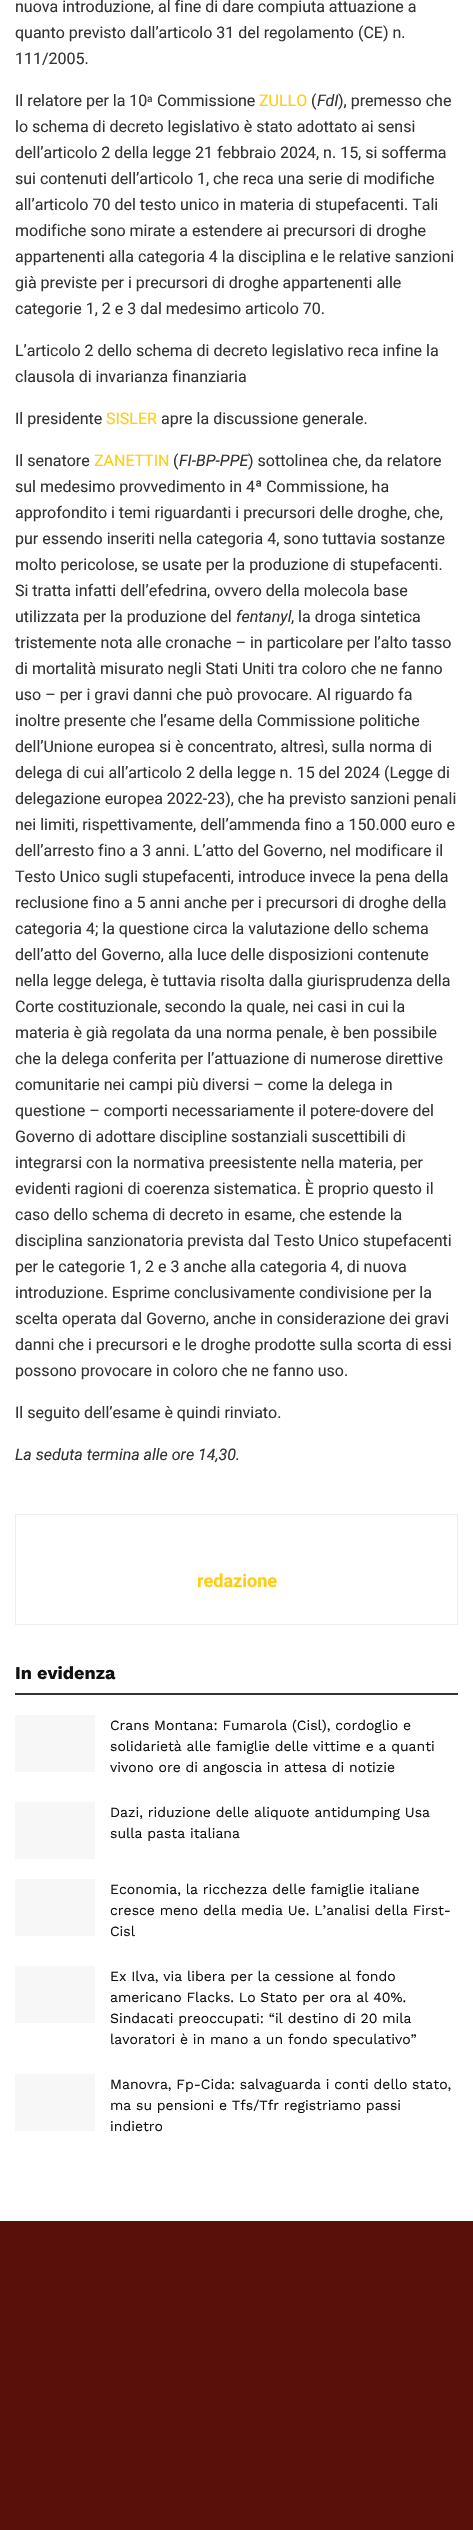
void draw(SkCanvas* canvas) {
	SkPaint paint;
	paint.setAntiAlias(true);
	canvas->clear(0xffffffff);
	SkFont f1(fontMgr->matchFamilyStyle("Roboto", SkFontStyle::Normal()), 16);
	f1.setSubpixel(true);
	paint.setColor(0xff333333);
	canvas->drawString("nuova introduzione, al fine di dare compiuta attuazione a", 15, 12, f1, paint);
	canvas->drawString("quanto previsto dall’articolo 31 del regolamento (CE) n.", 15, 38, f1, paint);
	canvas->drawString("111/2005.", 15, 64, f1, paint);
	canvas->drawString("Il relatore per la 10", 15, 106, f1, paint);
	SkFont f2(fontMgr->matchFamilyStyle("Roboto", SkFontStyle::Normal()), 10);
	f2.setSubpixel(true);
	canvas->drawString("a", 147, 102, f2, paint);
	canvas->drawString("Commissione", 157, 106, f1, paint);
	paint.setColor(0xffffcd13);
	canvas->drawString("ZULLO", 259, 106, f1, paint);
	paint.setColor(0xff333333);
	canvas->drawString("(", 311, 106, f1, paint);
	SkFont f3(fontMgr->matchFamilyStyle("Roboto", SkFontStyle::Italic()), 16);
	f3.setSubpixel(true);
	canvas->drawString("FdI", 317, 106, f3, paint);
	canvas->drawString("), premesso che", 338, 106, f1, paint);
	canvas->drawString("lo schema di decreto legislativo è stato adottato ai sensi", 15, 132, f1, paint);
	canvas->drawString("dell’articolo 2 della legge 21 febbraio 2024, n. 15, si sofferma", 15, 158, f1, paint);
	canvas->drawString("sui contenuti dell’articolo 1, che reca una serie di modifiche", 15, 184, f1, paint);
	canvas->drawString("all’articolo 70 del testo unico in materia di stupefacenti. Tali", 15, 210, f1, paint);
	canvas->drawString("modifiche sono mirate a estendere ai precursori di droghe", 15, 236, f1, paint);
	canvas->drawString("appartenenti alla categoria 4 la disciplina e le relative sanzioni", 15, 262, f1, paint);
	canvas->drawString("già previste per i precursori di droghe appartenenti alle", 15, 288, f1, paint);
	canvas->drawString("categorie 1, 2 e 3 dal medesimo articolo 70.", 15, 314, f1, paint);
	canvas->drawString("L’articolo 2 dello schema di decreto legislativo reca infine la", 15, 356, f1, paint);
	canvas->drawString("clausola di invarianza finanziaria", 15, 382, f1, paint);
	canvas->drawString("Il presidente", 15, 424, f1, paint);
	paint.setColor(0xffffcd13);
	canvas->drawString("SISLER", 106, 424, f1, paint);
	paint.setColor(0xff333333);
	canvas->drawString("apre la discussione generale.", 161, 424, f1, paint);
	canvas->drawString("Il senatore", 15, 466, f1, paint);
	paint.setColor(0xffffcd13);
	canvas->drawString("ZANETTIN", 94, 466, f1, paint);
	paint.setColor(0xff333333);
	canvas->drawString("(", 173, 466, f1, paint);
	canvas->drawString("FI-BP-PPE", 179, 466, f3, paint);
	canvas->drawString(") sottolinea che, da relatore", 248, 466, f1, paint);
	canvas->drawString("sul medesimo provvedimento in 4ª Commissione, ha", 15, 492, f1, paint);
	canvas->drawString("approfondito i temi riguardanti i precursori delle droghe, che,", 15, 518, f1, paint);
	canvas->drawString("pur essendo inseriti nella categoria 4, sono tuttavia sostanze", 15, 544, f1, paint);
	canvas->drawString("molto pericolose, se usate per la produzione di stupefacenti.", 15, 570, f1, paint);
	canvas->drawString("Si tratta infatti dell’efedrina, ovvero della molecola base", 15, 596, f1, paint);
	canvas->drawString("utilizzata per la produzione del", 15, 622, f1, paint);
	canvas->drawString("fentanyl", 236, 622, f3, paint);
	canvas->drawString(", la droga sintetica", 291, 622, f1, paint);
	canvas->drawString("tristemente nota alle cronache – in particolare per l’alto tasso", 15, 648, f1, paint);
	canvas->drawString("di mortalità misurato negli Stati Uniti tra coloro che ne fanno", 15, 674, f1, paint);
	canvas->drawString("uso – per i gravi danni che può provocare. Al riguardo fa", 15, 700, f1, paint);
	canvas->drawString("inoltre presente che l’esame della Commissione politiche", 15, 726, f1, paint);
	canvas->drawString("dell’Unione europea si è concentrato, altresì, sulla norma di", 15, 752, f1, paint);
	canvas->drawString("delega di cui all’articolo 2 della legge n. 15 del 2024 (Legge di", 15, 778, f1, paint);
	canvas->drawString("delegazione europea 2022-23), che ha previsto sanzioni penali", 15, 804, f1, paint);
	canvas->drawString("nei limiti, rispettivamente, dell’ammenda fino a 150.000 euro e", 15, 830, f1, paint);
	canvas->drawString("dell’arresto fino a 3 anni. L’atto del Governo, nel modificare il", 15, 856, f1, paint);
	canvas->drawString("Testo Unico sugli stupefacenti, introduce invece la pena della", 15, 882, f1, paint);
	canvas->drawString("reclusione fino a 5 anni anche per i precursori di droghe della", 15, 908, f1, paint);
	canvas->drawString("categoria 4; la questione circa la valutazione dello schema", 15, 934, f1, paint);
	canvas->drawString("dell’atto del Governo, alla luce delle disposizioni contenute", 15, 960, f1, paint);
	canvas->drawString("nella legge delega, è tuttavia risolta dalla giurisprudenza della", 15, 986, f1, paint);
	canvas->drawString("Corte costituzionale, secondo la quale, nei casi in cui la", 15, 1012, f1, paint);
	canvas->drawString("materia è già regolata da una norma penale, è ben possibile", 15, 1038, f1, paint);
	canvas->drawString("che la delega conferita per l’attuazione di numerose direttive", 15, 1064, f1, paint);
	canvas->drawString("comunitarie nei campi più diversi – come la delega in", 15, 1090, f1, paint);
	canvas->drawString("questione – comporti necessariamente il potere-dovere del", 15, 1116, f1, paint);
	canvas->drawString("Governo di adottare discipline sostanziali suscettibili di", 15, 1142, f1, paint);
	canvas->drawString("integrarsi con la normativa preesistente nella materia, per", 15, 1168, f1, paint);
	canvas->drawString("evidenti ragioni di coerenza sistematica. È proprio questo il", 15, 1194, f1, paint);
	canvas->drawString("caso dello schema di decreto in esame, che estende la", 15, 1220, f1, paint);
	canvas->drawString("disciplina sanzionatoria prevista dal Testo Unico stupefacenti", 15, 1246, f1, paint);
	canvas->drawString("per le categorie 1, 2 e 3 anche alla categoria 4, di nuova", 15, 1272, f1, paint);
	canvas->drawString("introduzione. Esprime conclusivamente condivisione per la", 15, 1298, f1, paint);
	canvas->drawString("scelta operata dal Governo, anche in considerazione dei gravi", 15, 1324, f1, paint);
	canvas->drawString("danni che i precursori e le droghe prodotte sulla scorta di essi", 15, 1350, f1, paint);
	canvas->drawString("possono provocare in coloro che ne fanno uso.", 15, 1376, f1, paint);
	canvas->drawString("Il seguito dell’esame è quindi rinviato.", 15, 1418, f1, paint);
	canvas->drawString("La seduta termina alle ore 14,30.", 15, 1460, f3, paint);
	paint.setStroke(true);
	paint.setStrokeWidth(1);
	paint.setColor(0xffeeeeee);
	canvas->drawRect(SkRect::MakeXYWH(15.5, 1514.5, 442, 110), paint);
	SkFont f4(fontMgr->matchFamilyStyle("Roboto", SkFontStyle::Bold()), 18);
	f4.setSubpixel(true);
	paint.setStroke(false);
	paint.setColor(0xffffcd13);
	canvas->drawString("redazione", 197, 1587, f4, paint);
	paint.setColor(0xff333333);
	canvas->drawRect(SkRect::MakeXYWH(15, 1693, 443, 2), paint);
	SkFont f5(fontMgr->matchFamilyStyle("Work Sans", SkFontStyle::Bold()), 18);
	f5.setSubpixel(true);
	paint.setColor(0xff111111);
	canvas->drawString("In evidenza", 15, 1679, f5, paint);
	paint.setColor(0xfff7f7f7);
	canvas->drawRect(SkRect::MakeXYWH(15, 1715, 80, 57), paint);
	SkFont f6(fontMgr->matchFamilyStyle("Work Sans", SkFontStyle::Normal()), 14);
	f6.setSubpixel(true);
	paint.setColor(0xff111111);
	canvas->drawString("Crans Montana: Fumarola (Cisl), cordoglio e", 110, 1730, f6, paint);
	canvas->drawString("solidarietà alle famiglie delle vittime e a quanti", 110, 1751, f6, paint);
	canvas->drawString("vivono ore di angoscia in attesa di notizie", 110, 1772, f6, paint);
	paint.setColor(0xfff7f7f7);
	canvas->drawRect(SkRect::MakeXYWH(15, 1802, 80, 57), paint);
	paint.setColor(0xff111111);
	canvas->drawString("Dazi, riduzione delle aliquote antidumping Usa", 110, 1817, f6, paint);
	canvas->drawString("sulla pasta italiana", 110, 1838, f6, paint);
	paint.setColor(0xfff7f7f7);
	canvas->drawRect(SkRect::MakeXYWH(15, 1879, 80, 57), paint);
	paint.setColor(0xff111111);
	canvas->drawString("Economia, la ricchezza delle famiglie italiane", 110, 1894, f6, paint);
	canvas->drawString("cresce meno della media Ue. L’analisi della First-", 110, 1915, f6, paint);
	canvas->drawString("Cisl", 110, 1936, f6, paint);
	paint.setColor(0xfff7f7f7);
	canvas->drawRect(SkRect::MakeXYWH(15, 1966, 80, 57), paint);
	paint.setColor(0xff111111);
	canvas->drawString("Ex Ilva, via libera per la cessione al fondo", 110, 1981, f6, paint);
	canvas->drawString("americano Flacks. Lo Stato per ora al 40%.", 110, 2002, f6, paint);
	canvas->drawString("Sindacati preoccupati: “il destino di 20 mila", 110, 2023, f6, paint);
	canvas->drawString("lavoratori è in mano a un fondo speculativo”", 110, 2044, f6, paint);
	paint.setColor(0xfff7f7f7);
	canvas->drawRect(SkRect::MakeXYWH(15, 2074, 80, 57), paint);
	paint.setColor(0xff111111);
	canvas->drawString("Manovra, Fp-Cida: salvaguarda i conti dello stato,", 110, 2089, f6, paint);
	canvas->drawString("ma su pensioni e Tfs/Tfr registriamo passi", 110, 2110, f6, paint);
	canvas->drawString("indietro", 110, 2131, f6, paint);
	paint.setColor(0xff59100b);
	canvas->drawRect(SkRect::MakeXYWH(0, 2221, 473, 309), paint);
}
